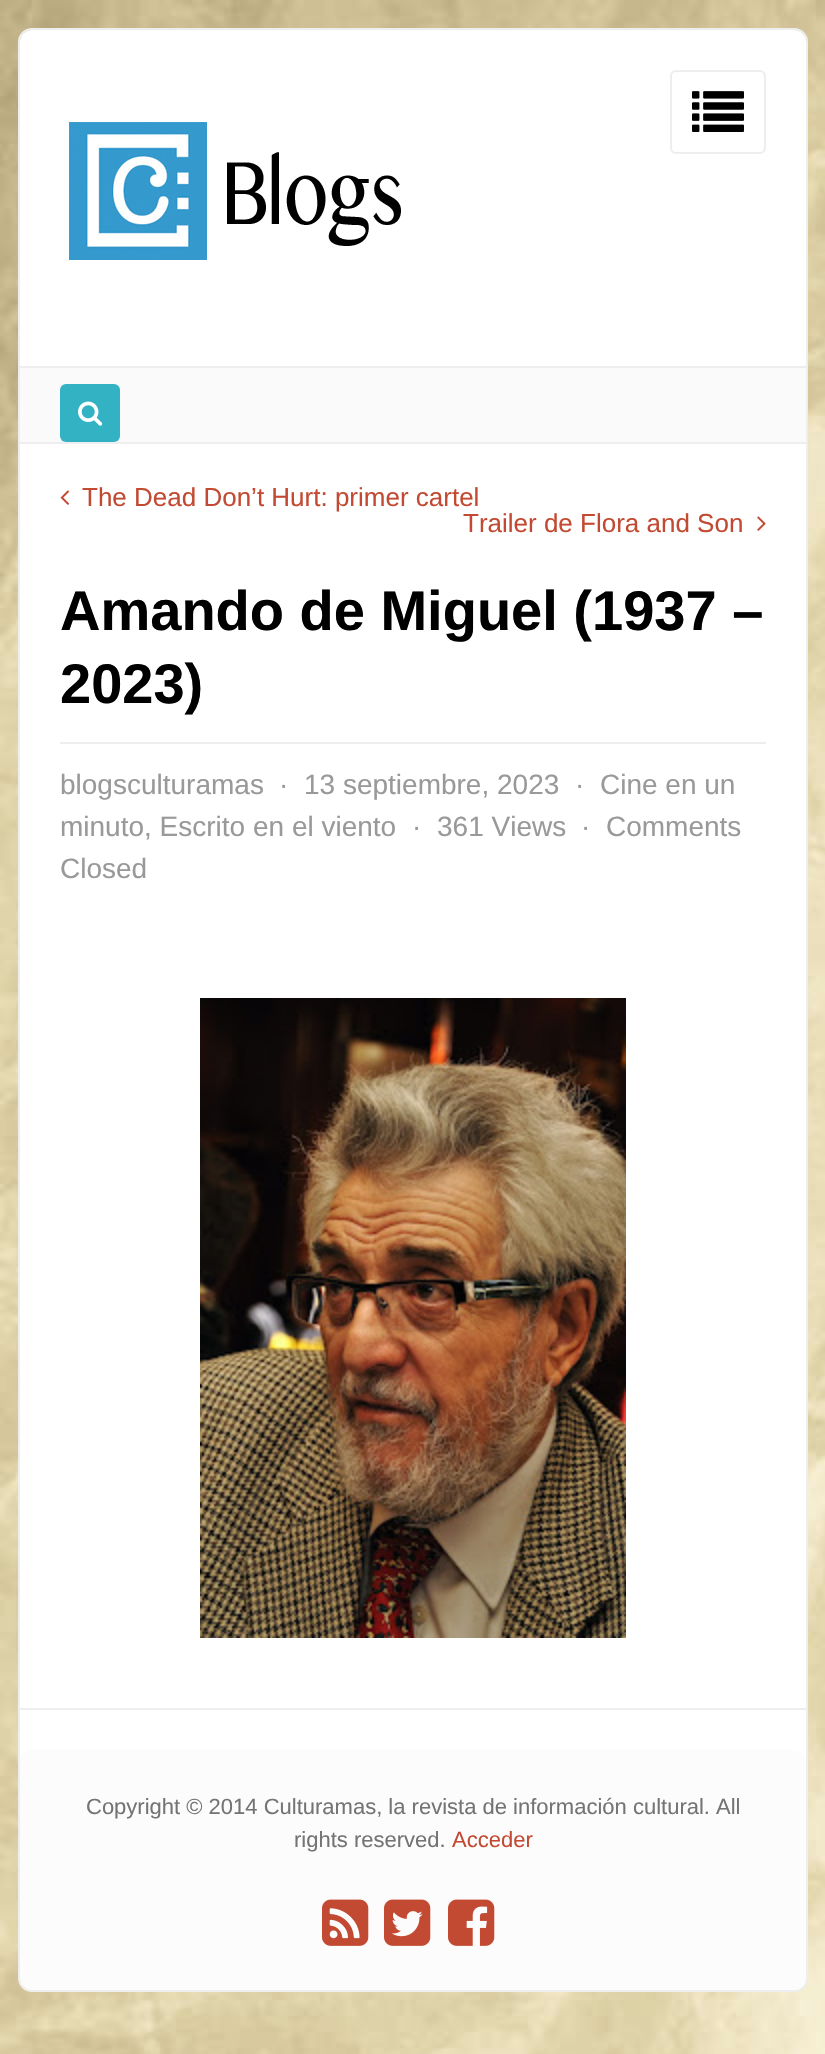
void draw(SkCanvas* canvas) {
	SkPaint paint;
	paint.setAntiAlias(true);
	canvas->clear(0xffffffff);
	canvas->drawImageRect(SkImages::DeferredFromEncodedData(SkData::MakeFromFileName("img1.png")), SkRect::MakeXYWH(0, 0, 825, 2054), SkSamplingOptions());
	paint.setStroke(true);
	paint.setStrokeWidth(2);
	paint.setColor(0xffeeeeee);
	canvas->drawRoundRect(SkRect::MakeXYWH(19, 29, 788, 1962), 13, 13, paint);
	paint.setStroke(false);
	paint.setColor(0xffffffff);
	canvas->drawRoundRect(SkRect::MakeXYWH(20, 30, 786, 1960), 12, 12, paint);
	paint.setStroke(true);
	paint.setColor(0xffeeeeee);
	canvas->drawRoundRect(SkRect::MakeXYWH(671, 71, 94, 82), 5, 5, paint);
	canvas->drawImageRect(SkImages::DeferredFromEncodedData(SkData::MakeFromFileName("img2.png")), SkRect::MakeXYWH(692, 91, 52, 41), SkSamplingOptions());
	canvas->drawImageRect(SkImages::DeferredFromEncodedData(SkData::MakeFromFileName("img3.png")), SkRect::MakeXYWH(69, 122, 332, 138), SkSamplingOptions());
	paint.setStroke(false);
	paint.setColor(0xfffafafa);
	canvas->drawRect(SkRect::MakeXYWH(20, 368, 786, 74), paint);
	paint.setColor(0xffeeeeee);
	canvas->drawRect(SkRect::MakeXYWH(20, 366, 786, 2), paint);
	canvas->drawRect(SkRect::MakeXYWH(20, 442, 786, 2), paint);
	paint.setColor(0xff32b2c3);
	canvas->drawRoundRect(SkRect::MakeXYWH(60, 384, 60, 58), 6, 6, paint);
	canvas->drawImageRect(SkImages::DeferredFromEncodedData(SkData::MakeFromFileName("img4.png")), SkRect::MakeXYWH(78, 401, 25, 25), SkSamplingOptions());
	canvas->drawImageRect(SkImages::DeferredFromEncodedData(SkData::MakeFromFileName("img5.png")), SkRect::MakeXYWH(60, 490, 10, 15), SkSamplingOptions());
	SkFont f1(fontMgr->matchFamilyStyle("Liberation Sans", SkFontStyle::Normal()), 26);
	f1.setSubpixel(true);
	paint.setColor(0xffc34a32);
	canvas->drawString("The Dead Don’t Hurt: primer cartel", 82, 506, f1, paint);
	canvas->drawString("Trailer de Flora and Son", 463, 532, f1, paint);
	canvas->drawImageRect(SkImages::DeferredFromEncodedData(SkData::MakeFromFileName("img6.png")), SkRect::MakeXYWH(757, 516, 9, 15), SkSamplingOptions());
	paint.setColor(0xffeeeeee);
	canvas->drawRect(SkRect::MakeXYWH(60, 742, 706, 2), paint);
	SkFont f2(fontMgr->matchFamilyStyle("Liberation Sans", SkFontStyle::Bold()), 56);
	f2.setSubpixel(true);
	paint.setColor(0xff000000);
	canvas->drawString("Amando de Miguel (1937 –", 60, 630, f2, paint);
	canvas->drawString("2023)", 60, 703, f2, paint);
	SkFont f3(fontMgr->matchFamilyStyle("Liberation Sans", SkFontStyle::Normal()), 28);
	f3.setSubpixel(true);
	paint.setColor(0xff999999);
	canvas->drawString("blogsculturamas", 60, 794, f3, paint);
	canvas->drawString("·", 279, 794, f3, paint);
	canvas->drawString("13 septiembre, 2023", 304, 794, f3, paint);
	canvas->drawString("·", 575, 794, f3, paint);
	canvas->drawString("Cine en un", 600, 794, f3, paint);
	canvas->drawString("minuto, Escrito en el viento", 60, 836, f3, paint);
	canvas->drawString("·", 412, 836, f3, paint);
	canvas->drawString("361 Views", 437, 836, f3, paint);
	canvas->drawString("·", 581, 836, f3, paint);
	canvas->drawString("Comments", 606, 836, f3, paint);
	canvas->drawString("Closed", 60, 878, f3, paint);
	canvas->drawImageRect(SkImages::DeferredFromEncodedData(SkData::MakeFromFileName("img7.png")), SkRect::MakeXYWH(200, 998, 426, 640), SkSamplingOptions());
	paint.setColor(0xffeeeeee);
	canvas->drawRect(SkRect::MakeXYWH(20, 1708, 786, 2), paint);
	paint.setColor(0xfffcfcfc);
	canvas->drawRoundRect(SkRect::MakeXYWH(20, 1750, 786, 240), 12, 12, paint);
	SkFont f4(fontMgr->matchFamilyStyle("Liberation Sans", SkFontStyle::Normal()), 22);
	f4.setSubpixel(true);
	paint.setColor(0xff747474);
	canvas->drawString("Copyright © 2014 Culturamas, la revista de información cultural. All", 86, 1814, f4, paint);
	canvas->drawString("rights reserved.", 294, 1847, f4, paint);
	paint.setColor(0xffc34a32);
	canvas->drawString("Acceder", 452, 1847, f4, paint);
	canvas->drawImageRect(SkImages::DeferredFromEncodedData(SkData::MakeFromFileName("img8.png")), SkRect::MakeXYWH(322, 1899, 47, 47), SkSamplingOptions());
	canvas->drawImageRect(SkImages::DeferredFromEncodedData(SkData::MakeFromFileName("img9.png")), SkRect::MakeXYWH(384, 1899, 47, 47), SkSamplingOptions());
	canvas->drawImageRect(SkImages::DeferredFromEncodedData(SkData::MakeFromFileName("img10.png")), SkRect::MakeXYWH(448, 1899, 47, 47), SkSamplingOptions());
}
